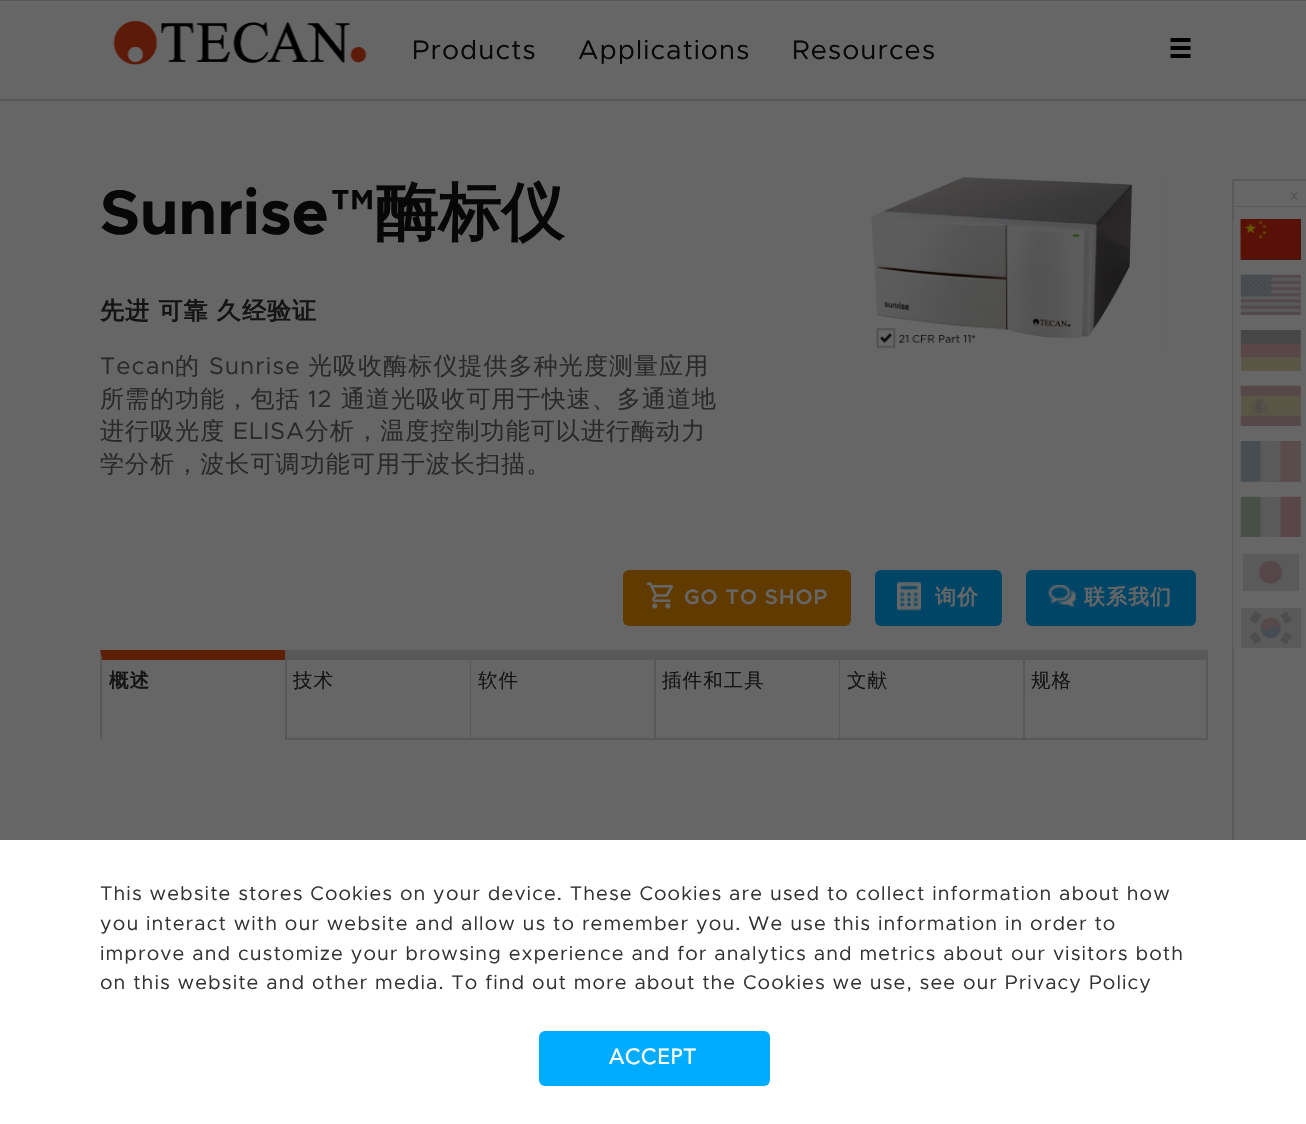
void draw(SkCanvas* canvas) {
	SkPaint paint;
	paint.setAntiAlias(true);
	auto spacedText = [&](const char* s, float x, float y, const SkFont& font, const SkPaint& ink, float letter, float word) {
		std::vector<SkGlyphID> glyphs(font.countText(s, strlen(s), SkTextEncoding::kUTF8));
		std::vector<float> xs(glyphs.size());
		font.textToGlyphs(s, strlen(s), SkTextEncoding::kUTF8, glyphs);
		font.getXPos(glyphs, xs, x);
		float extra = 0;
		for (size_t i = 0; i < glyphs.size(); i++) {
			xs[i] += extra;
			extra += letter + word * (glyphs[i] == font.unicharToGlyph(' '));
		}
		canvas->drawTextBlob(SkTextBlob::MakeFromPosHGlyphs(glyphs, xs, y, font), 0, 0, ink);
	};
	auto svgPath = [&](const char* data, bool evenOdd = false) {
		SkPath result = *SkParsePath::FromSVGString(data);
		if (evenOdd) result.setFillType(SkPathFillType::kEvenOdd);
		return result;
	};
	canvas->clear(0xff666666);
	paint.setColor(0xff585854);
	canvas->drawRect(SkRect::MakeXYWH(0, 0, 1306, 1), paint);
	paint.setColor(0xff585858);
	canvas->drawRect(SkRect::MakeXYWH(0, 99, 1306, 2), paint);
	canvas->drawImageRect(SkImages::DeferredFromEncodedData(SkData::MakeFromFileName("img1.png")), SkRect::MakeXYWH(113, 21, 254, 44), SkSamplingOptions());
	SkFont f1(fontMgr->matchFamilyStyle("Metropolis", SkFontStyle::Normal()), 27);
	f1.setSubpixel(true);
	paint.setColor(0xff070707);
	spacedText("Products", 412, 59, f1, paint, 1.08, 0);
	spacedText("Applications", 578, 59, f1, paint, 1.08, 0);
	spacedText("Resources", 792, 59, f1, paint, 1.08, 0);
	canvas->drawImageRect(SkImages::DeferredFromEncodedData(SkData::MakeFromFileName("img2.png")), SkRect::MakeXYWH(1170, 38, 21, 20), SkSamplingOptions());
	paint.setColor(0xff595959);
	canvas->drawRect(SkRect::MakeXYWH(1233, 179, 73, 2), paint);
	canvas->drawRect(SkRect::MakeXYWH(1232, 206, 74, 1), paint);
	canvas->drawRect(SkRect::MakeXYWH(1232, 180, 2, 660), paint);
	SkFont f2(fontMgr->matchFamilyStyle("Metropolis", SkFontStyle::Normal()), 15);
	f2.setSubpixel(true);
	paint.setColor(0xff525252);
	spacedText("x", 1290, 200, f2, paint, 1.08, 0);
	paint.setColor(0xff646464);
	canvas->drawRect(SkRect::MakeXYWH(1233, 219, 1, 429), paint);
	paint.setColor(0xff222222);
	canvas->drawRect(SkRect::MakeXYWH(1241, 219, 60, 41), paint);
	canvas->drawImageRect(SkImages::DeferredFromEncodedData(SkData::MakeFromFileName("img3.png")), SkRect::MakeXYWH(1240, 219, 61, 41), SkSamplingOptions());
	paint.setColor(0xff575757);
	canvas->drawRect(SkRect::MakeXYWH(1241, 275, 60, 40), paint);
	canvas->drawImageRect(SkImages::DeferredFromEncodedData(SkData::MakeFromFileName("img4.png")), SkRect::MakeXYWH(1240, 274, 61, 41), SkSamplingOptions());
	canvas->drawRect(SkRect::MakeXYWH(1241, 330, 60, 41), paint);
	canvas->drawImageRect(SkImages::DeferredFromEncodedData(SkData::MakeFromFileName("img5.png")), SkRect::MakeXYWH(1240, 330, 61, 41), SkSamplingOptions());
	canvas->drawRect(SkRect::MakeXYWH(1241, 386, 60, 40), paint);
	canvas->drawImageRect(SkImages::DeferredFromEncodedData(SkData::MakeFromFileName("img6.png")), SkRect::MakeXYWH(1240, 385, 61, 41), SkSamplingOptions());
	canvas->drawRect(SkRect::MakeXYWH(1241, 441, 60, 41), paint);
	canvas->drawImageRect(SkImages::DeferredFromEncodedData(SkData::MakeFromFileName("img7.png")), SkRect::MakeXYWH(1240, 441, 61, 41), SkSamplingOptions());
	canvas->drawRect(SkRect::MakeXYWH(1241, 497, 60, 40), paint);
	canvas->drawImageRect(SkImages::DeferredFromEncodedData(SkData::MakeFromFileName("img8.png")), SkRect::MakeXYWH(1240, 496, 61, 41), SkSamplingOptions());
	canvas->drawRect(SkRect::MakeXYWH(1243, 554, 56, 37), paint);
	canvas->drawImageRect(SkImages::DeferredFromEncodedData(SkData::MakeFromFileName("img9.png")), SkRect::MakeXYWH(1243, 554, 56, 37), SkSamplingOptions());
	canvas->drawRect(SkRect::MakeXYWH(1241, 608, 60, 40), paint);
	canvas->drawImageRect(SkImages::DeferredFromEncodedData(SkData::MakeFromFileName("img10.png")), SkRect::MakeXYWH(1241, 608, 59, 40), SkSamplingOptions());
	SkFont f3(fontMgr->matchFamilyStyle("Metropolis", SkFontStyle::Bold()), 63);
	f3.setSubpixel(true);
	paint.setColor(0xff070707);
	canvas->drawString("Sunrise™", 100, 234, f3, paint);
	SkFont f4(fontMgr->matchFamilyStyle("WenQuanYi Zen Hei", SkFontStyle::Bold()), 63);
	f4.setSubpixel(true);
	canvas->drawString("酶标仪", 375, 234, f4, paint);
	SkFont f5(fontMgr->matchFamilyStyle("WenQuanYi Zen Hei", SkFontStyle::Bold()), 24);
	f5.setSubpixel(true);
	paint.setColor(0xff141414);
	spacedText("先进 可靠 久经验证", 100, 319, f5, paint, 1.08, 0);
	SkFont f6(fontMgr->matchFamilyStyle("Metropolis", SkFontStyle::Normal()), 24);
	f6.setSubpixel(true);
	paint.setColor(0xff292929);
	spacedText("Tecan", 100, 374, f6, paint, 1.08, 0);
	SkFont f7(fontMgr->matchFamilyStyle("WenQuanYi Zen Hei", SkFontStyle(500, SkFontStyle::kNormal_Width, SkFontStyle::kUpright_Slant)), 24);
	f7.setSubpixel(true);
	spacedText("的", 175, 374, f7, paint, 1.08, 0);
	spacedText("Sunrise", 209, 374, f6, paint, 1.08, 0);
	spacedText("光吸收酶标仪提供多种光度测量应用", 308, 374, f7, paint, 1.08, 0);
	spacedText("所需的功能，包括", 100, 407, f7, paint, 1.08, 0);
	spacedText("12", 308, 407, f6, paint, 1.08, 0);
	spacedText("通道光吸收可用于快速、多通道地", 341, 407, f7, paint, 1.08, 0);
	spacedText("进行吸光度", 100, 439, f7, paint, 1.08, 0);
	spacedText("ELISA", 233, 439, f6, paint, 1.08, 0);
	spacedText("分析，温度控制功能可以进行酶动力", 305, 439, f7, paint, 1.08, 0);
	spacedText("学分析，波长可调功能可用于波长扫描。", 100, 472, f7, paint, 1.08, 0);
	paint.setColor(0xff5e5e5e);
	canvas->drawRect(SkRect::MakeXYWH(1162, 176, 1, 175), paint);
	canvas->drawImageRect(SkImages::DeferredFromEncodedData(SkData::MakeFromFileName("img11.png")), SkRect::MakeXYWH(818, 176, 345, 175), SkSamplingOptions());
	paint.setColor(0xff613a00);
	canvas->drawRoundRect(SkRect::MakeXYWH(623, 570, 228, 56), 6, 6, paint);
	canvas->drawImageRect(SkImages::DeferredFromEncodedData(SkData::MakeFromFileName("img12.png")), SkRect::MakeXYWH(646, 582, 28, 27), SkSamplingOptions());
	SkFont f8(fontMgr->matchFamilyStyle("Metropolis", SkFontStyle(600, SkFontStyle::kNormal_Width, SkFontStyle::kUpright_Slant)), 21);
	f8.setSubpixel(true);
	paint.setColor(0xff666666);
	spacedText("GO TO SHOP", 684, 604, f8, paint, 1, 0);
	paint.setColor(0xff004566);
	canvas->drawRoundRect(SkRect::MakeXYWH(875, 570, 127, 56), 6, 6, paint);
	canvas->drawImageRect(SkImages::DeferredFromEncodedData(SkData::MakeFromFileName("img13.png")), SkRect::MakeXYWH(897, 582, 24, 29), SkSamplingOptions());
	SkFont f9(fontMgr->matchFamilyStyle("WenQuanYi Zen Hei", SkFontStyle::Bold()), 21);
	f9.setSubpixel(true);
	paint.setColor(0xff666666);
	spacedText("询价", 935, 604, f9, paint, 1, 0);
	paint.setColor(0xff004566);
	canvas->drawRoundRect(SkRect::MakeXYWH(1026, 570, 170, 56), 6, 6, paint);
	canvas->drawImageRect(SkImages::DeferredFromEncodedData(SkData::MakeFromFileName("img14.png")), SkRect::MakeXYWH(1048, 585, 28, 23), SkSamplingOptions());
	paint.setColor(0xff666666);
	spacedText("联系我们", 1084, 604, f9, paint, 1, 0);
	paint.setColor(0xff585858);
	canvas->drawRect(SkRect::MakeXYWH(101, 738, 1107, 2), paint);
	paint.setColor(0xff5d1f06);
	canvas->drawPath(svgPath("M100 650H285V660H102Z"), paint);
	paint.setColor(0xff585858);
	canvas->drawPath(svgPath("M100 738V650L102 660V738Z"), paint);
	SkFont f10(fontMgr->matchFamilyStyle("WenQuanYi Zen Hei", SkFontStyle::Bold()), 19.5);
	f10.setSubpixel(true);
	paint.setColor(0xff141414);
	spacedText("概述", 109, 687, f10, paint, 1.08, 0);
	paint.setColor(0xff666666);
	canvas->drawRect(SkRect::MakeXYWH(102, 738, 183, 2), paint);
	paint.setColor(0xff585858);
	canvas->drawRect(SkRect::MakeXYWH(287, 650, 183, 10), paint);
	canvas->drawRect(SkRect::MakeXYWH(285, 650, 2, 88), paint);
	SkFont f11(fontMgr->matchFamilyStyle("WenQuanYi Zen Hei", SkFontStyle(500, SkFontStyle::kNormal_Width, SkFontStyle::kUpright_Slant)), 19.5);
	f11.setSubpixel(true);
	paint.setColor(0xff141414);
	spacedText("技术", 293, 687, f11, paint, 1.08, 0);
	paint.setColor(0xff585858);
	canvas->drawRect(SkRect::MakeXYWH(472, 650, 182, 10), paint);
	canvas->drawRect(SkRect::MakeXYWH(470, 650, 2, 88), paint);
	paint.setColor(0xff666666);
	canvas->drawRect(SkRect::MakeXYWH(471, 660, 1, 78), paint);
	paint.setColor(0xff141414);
	spacedText("软件", 478, 687, f11, paint, 1.08, 0);
	paint.setColor(0xff585858);
	canvas->drawRect(SkRect::MakeXYWH(656, 650, 183, 10), paint);
	canvas->drawRect(SkRect::MakeXYWH(654, 650, 2, 88), paint);
	paint.setColor(0xff141414);
	spacedText("插件和工具", 662, 687, f11, paint, 1.08, 0);
	paint.setColor(0xff585858);
	canvas->drawRect(SkRect::MakeXYWH(841, 650, 182, 10), paint);
	canvas->drawRect(SkRect::MakeXYWH(839, 650, 2, 88), paint);
	paint.setColor(0xff666666);
	canvas->drawRect(SkRect::MakeXYWH(840, 660, 1, 78), paint);
	paint.setColor(0xff141414);
	spacedText("文献", 847, 687, f11, paint, 1.08, 0);
	paint.setColor(0xff585858);
	canvas->drawRect(SkRect::MakeXYWH(1025, 650, 181, 10), paint);
	canvas->drawRect(SkRect::MakeXYWH(1206, 650, 2, 88), paint);
	canvas->drawRect(SkRect::MakeXYWH(1023, 650, 2, 88), paint);
	paint.setColor(0xff141414);
	spacedText("规格", 1031, 687, f11, paint, 1.08, 0);
	paint.setColor(0xffffffff);
	canvas->drawRect(SkRect::MakeXYWH(0, 840, 1306, 284), paint);
	SkFont f12(fontMgr->matchFamilyStyle("Metropolis", SkFontStyle::Normal()), 19.8);
	f12.setSubpixel(true);
	paint.setColor(0xff333333);
	spacedText("This website stores Cookies on your device. These Cookies are used to collect information about how", 100, 900, f12, paint, 1.08, 0);
	spacedText("you interact with our website and allow us to remember you. We use this information in order to", 100, 930, f12, paint, 1.08, 0);
	spacedText("improve and customize your browsing experience and for analytics and metrics about our visitors both", 100, 960, f12, paint, 1.08, 0);
	spacedText("on this website and other media. To find out more about the Cookies we use, see our Privacy Policy", 100, 989, f12, paint, 1.08, 0);
	paint.setColor(0xff00acff);
	canvas->drawRoundRect(SkRect::MakeXYWH(539, 1031, 231, 55), 6, 6, paint);
	SkFont f13(fontMgr->matchFamilyStyle("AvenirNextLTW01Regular", SkFontStyle::Bold()), 21);
	f13.setSubpixel(true);
	paint.setColor(0xffffffff);
	spacedText("ACCEPT", 609, 1064, f13, paint, 1, 0);
}
